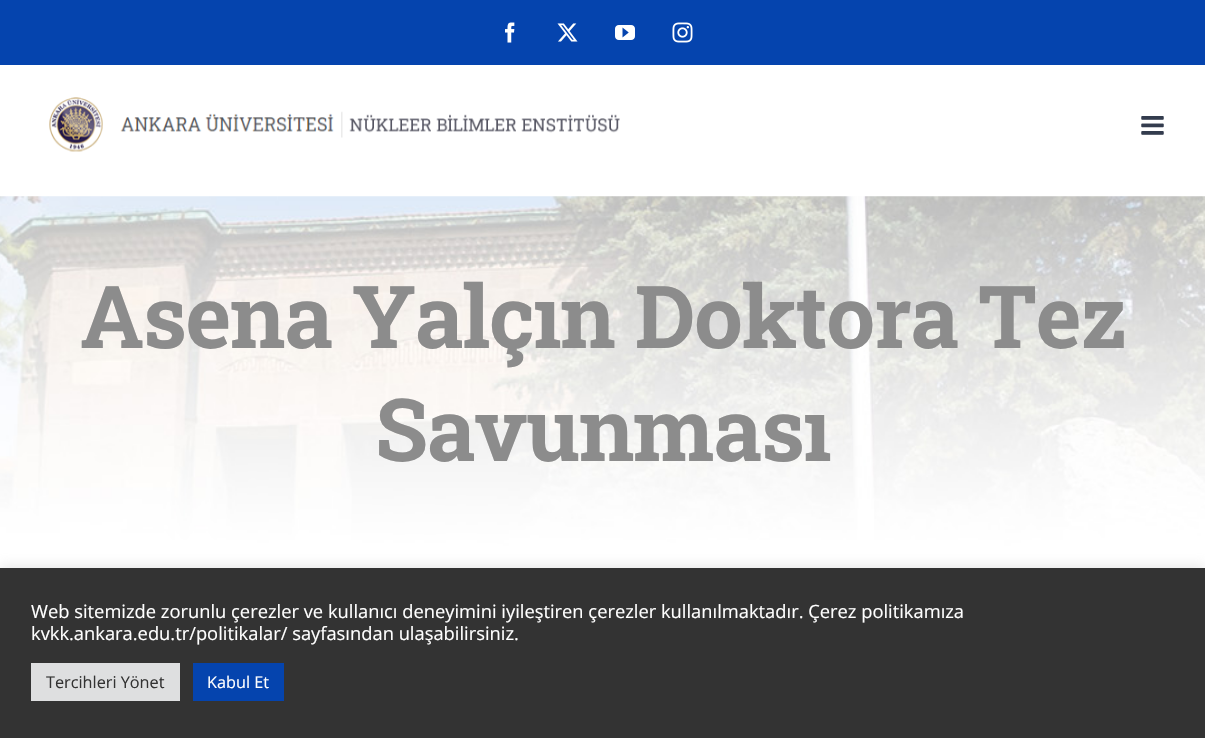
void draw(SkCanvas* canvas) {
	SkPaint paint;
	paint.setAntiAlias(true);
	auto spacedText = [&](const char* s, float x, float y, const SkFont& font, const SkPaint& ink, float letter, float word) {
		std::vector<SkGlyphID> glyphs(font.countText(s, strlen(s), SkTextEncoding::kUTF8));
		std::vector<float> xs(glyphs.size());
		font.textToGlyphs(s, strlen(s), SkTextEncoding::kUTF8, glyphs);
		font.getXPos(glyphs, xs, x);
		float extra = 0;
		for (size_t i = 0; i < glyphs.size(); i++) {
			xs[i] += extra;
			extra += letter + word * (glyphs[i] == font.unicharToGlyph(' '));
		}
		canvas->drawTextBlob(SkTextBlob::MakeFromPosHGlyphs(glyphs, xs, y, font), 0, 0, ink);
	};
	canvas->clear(0xffffffff);
	paint.setColor(0xff0544ae);
	canvas->drawRect(SkRect::MakeXYWH(0, 0, 1205, 65), paint);
	canvas->drawImageRect(SkImages::DeferredFromEncodedData(SkData::MakeFromFileName("img1.png")), SkRect::MakeXYWH(505, 22, 10, 21), SkSamplingOptions());
	canvas->drawImageRect(SkImages::DeferredFromEncodedData(SkData::MakeFromFileName("img2.png")), SkRect::MakeXYWH(557, 23, 21, 19), SkSamplingOptions());
	canvas->drawImageRect(SkImages::DeferredFromEncodedData(SkData::MakeFromFileName("img3.png")), SkRect::MakeXYWH(615, 25, 20, 15), SkSamplingOptions());
	canvas->drawImageRect(SkImages::DeferredFromEncodedData(SkData::MakeFromFileName("img4.png")), SkRect::MakeXYWH(672, 22, 21, 21), SkSamplingOptions());
	canvas->drawImageRect(SkImages::DeferredFromEncodedData(SkData::MakeFromFileName("img5.png")), SkRect::MakeXYWH(49, 97, 571, 55), SkSamplingOptions());
	canvas->drawImageRect(SkImages::DeferredFromEncodedData(SkData::MakeFromFileName("img6.png")), SkRect::MakeXYWH(1141, 116, 23, 19), SkSamplingOptions());
	canvas->drawImageRect(SkImages::DeferredFromEncodedData(SkData::MakeFromFileName("img7.png")), SkRect::MakeXYWH(0, 196, 1205, 350), SkSamplingOptions());
	SkFont f1(fontMgr->matchFamilyStyle("Roboto Slab", SkFontStyle::Bold()), 86.9);
	f1.setSubpixel(true);
	paint.setColor(0xff8c8c8c);
	spacedText("Asena Yalçın Doktora Tez", 80, 348, f1, paint, -1.25, 0);
	spacedText("Savunması", 375, 461, f1, paint, -1.25, 0);
	paint.setColor(0x4dacabab);
	paint.setMaskFilter(SkMaskFilter::MakeBlur(kNormal_SkBlurStyle, 6));
	canvas->drawRect(SkRect::MakeXYWH(0, 566, 1205, 172), paint);
	paint.setMaskFilter(nullptr);
	paint.setColor(0xff333333);
	canvas->drawRect(SkRect::MakeXYWH(0, 568, 1205, 170), paint);
	SkFont f2(fontMgr->matchFamilyStyle("Open Sans", SkFontStyle::Normal()), 18.33);
	f2.setSubpixel(true);
	paint.setColor(0xffffffff);
	canvas->drawString("Web sitemizde zorunlu çerezler ve kullanıcı deneyimini iyileştiren çerezler kullanılmaktadır. Çerez politikamıza", 31, 618, f2, paint);
	canvas->drawString("kvkk.ankara.edu.tr/politikalar/ sayfasından ulaşabilirsiniz.", 31, 640, f2, paint);
	paint.setColor(0xffdedfe0);
	canvas->drawRect(SkRect::MakeXYWH(31, 663, 149, 38), paint);
	SkFont f3(fontMgr->matchFamilyStyle("Open Sans", SkFontStyle::Normal()), 16.25);
	f3.setSubpixel(true);
	paint.setColor(0xff333333);
	canvas->drawString("Tercihleri Yönet", 46, 688, f3, paint);
	paint.setColor(0xff0544ae);
	canvas->drawRect(SkRect::MakeXYWH(193, 663, 91, 38), paint);
	paint.setColor(0xffffffff);
	canvas->drawString("Kabul Et", 207, 688, f3, paint);
}
